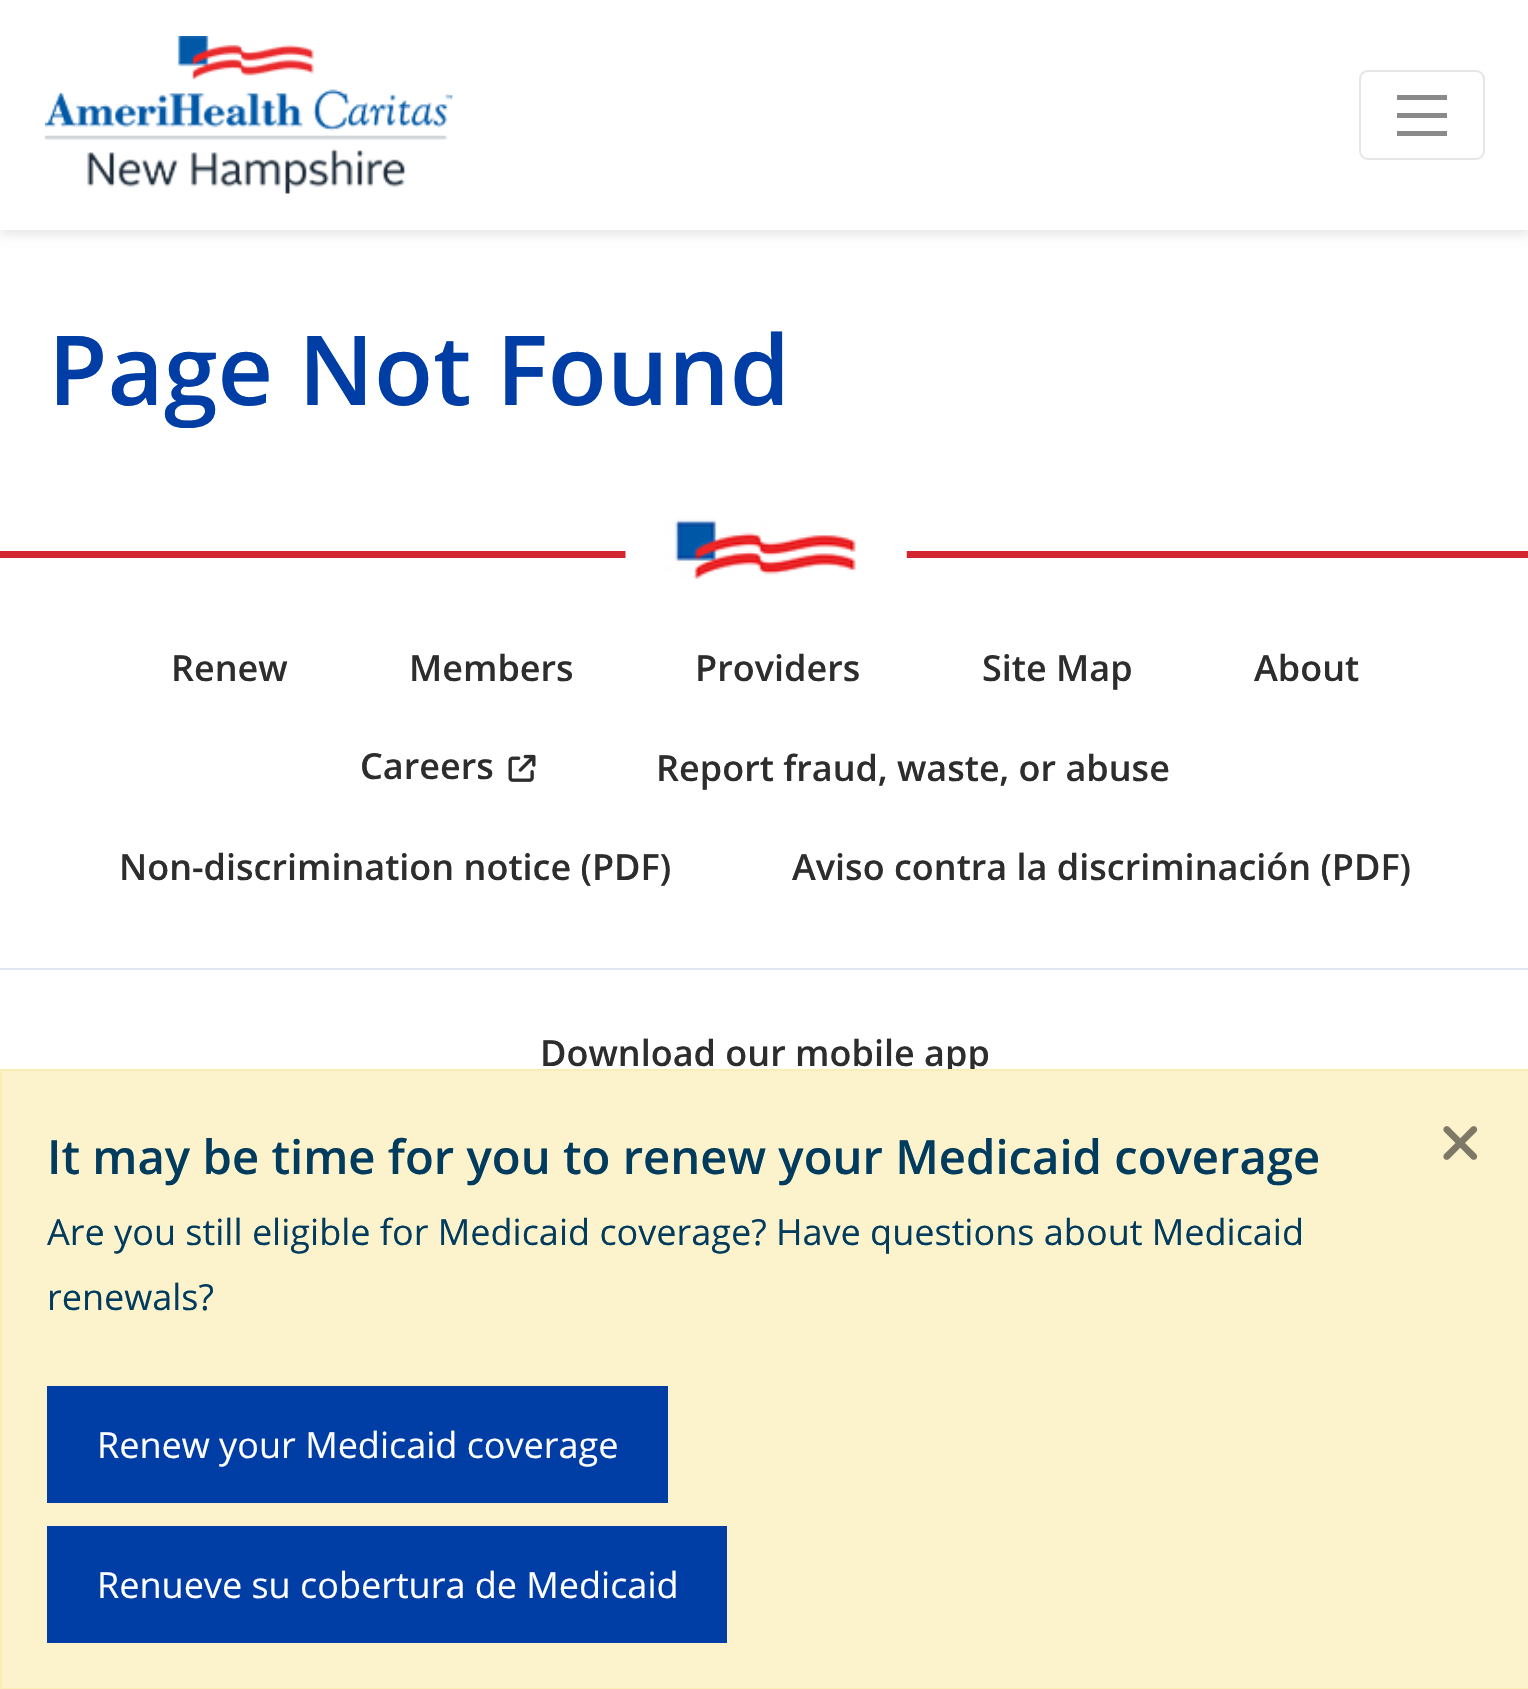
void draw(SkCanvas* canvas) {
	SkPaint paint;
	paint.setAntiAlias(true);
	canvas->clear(0xffffffff);
	paint.setColor(0x1a000000);
	paint.setMaskFilter(SkMaskFilter::MakeBlur(kNormal_SkBlurStyle, 5.5));
	canvas->drawRect(SkRect::MakeXYWH(0, 5, 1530, 229), paint);
	paint.setMaskFilter(nullptr);
	paint.setColor(0xffffffff);
	canvas->drawRect(SkRect::MakeXYWH(0, 0, 1528, 230), paint);
	canvas->drawImageRect(SkImages::DeferredFromEncodedData(SkData::MakeFromFileName("img1.png")), SkRect::MakeXYWH(45, 36, 408, 158), SkSamplingOptions());
	paint.setStroke(true);
	paint.setStrokeWidth(2);
	paint.setColor(0xffe6e6e6);
	canvas->drawRoundRect(SkRect::MakeXYWH(1360, 71, 124, 88), 8, 8, paint);
	paint.setStroke(false);
	paint.setColor(0xff8a8a8a);
	canvas->drawRect(SkRect::MakeXYWH(1397, 113, 50, 5), paint);
	canvas->drawRect(SkRect::MakeXYWH(1397, 95, 50, 5), paint);
	canvas->drawRect(SkRect::MakeXYWH(1397, 131, 50, 5), paint);
	SkFont f1(fontMgr->matchFamilyStyle("Open Sans", SkFontStyle(600, SkFontStyle::kNormal_Width, SkFontStyle::kUpright_Slant)), 96.75);
	f1.setSubpixel(true);
	paint.setColor(0xff003da5);
	canvas->drawString("Page Not Found", 48, 405, f1, paint);
	paint.setColor(0xffffffff);
	canvas->drawRect(SkRect::MakeXYWH(182, 428, 10, 1), paint);
	paint.setColor(0xffd22730);
	canvas->drawRect(SkRect::MakeXYWH(0, 551, 1528, 7), paint);
	canvas->drawImageRect(SkImages::DeferredFromEncodedData(SkData::MakeFromFileName("img2.png")), SkRect::MakeXYWH(625, 519, 282, 60), SkSamplingOptions());
	paint.setColor(0xffe0e5ef);
	canvas->drawRect(SkRect::MakeXYWH(0, 968, 1528, 2), paint);
	SkFont f2(fontMgr->matchFamilyStyle("Open Sans", SkFontStyle(600, SkFontStyle::kNormal_Width, SkFontStyle::kUpright_Slant)), 36);
	f2.setSubpixel(true);
	paint.setColor(0xff2d2d2d);
	canvas->drawString("Renew", 171, 681, f2, paint);
	canvas->drawString("Members", 409, 681, f2, paint);
	canvas->drawString("Providers", 695, 681, f2, paint);
	canvas->drawString("Site Map", 982, 681, f2, paint);
	canvas->drawString("About", 1254, 681, f2, paint);
	canvas->drawString("Careers", 360, 779, f2, paint);
	canvas->drawImageRect(SkImages::DeferredFromEncodedData(SkData::MakeFromFileName("img3.png")), SkRect::MakeXYWH(508, 754, 28, 28), SkSamplingOptions());
	canvas->drawString("Report fraud, waste, or abuse", 656, 781, f2, paint);
	canvas->drawString("Non-discrimination notice (PDF)", 119, 880, f2, paint);
	canvas->drawString("Aviso contra la discriminación (PDF)", 792, 880, f2, paint);
	canvas->drawString("Download our mobile app", 540, 1066, f2, paint);
	paint.setColor(0xfffcf3cc);
	canvas->drawRect(SkRect::MakeXYWH(1, 1070, 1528, 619), paint);
	paint.setStroke(true);
	paint.setColor(0xfffbedb3);
	canvas->drawRect(SkRect::MakeXYWH(1, 1070, 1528, 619), paint);
	SkFont f3(fontMgr->matchFamilyStyle("Open Sans", SkFontStyle(600, SkFontStyle::kNormal_Width, SkFontStyle::kUpright_Slant)), 47.25);
	f3.setSubpixel(true);
	paint.setStroke(false);
	paint.setColor(0xff013b5d);
	canvas->drawString("It may be time for you to renew your Medicaid coverage", 47, 1174, f3, paint);
	canvas->drawImageRect(SkImages::DeferredFromEncodedData(SkData::MakeFromFileName("img4.png")), SkRect::MakeXYWH(1443, 1126, 35, 34), SkSamplingOptions());
	SkFont f4(fontMgr->matchFamilyStyle("Open Sans", SkFontStyle::Normal()), 36);
	f4.setSubpixel(true);
	canvas->drawString("Are you still eligible for Medicaid coverage? Have questions about Medicaid", 47, 1245, f4, paint);
	canvas->drawString("renewals?", 47, 1310, f4, paint);
	paint.setColor(0xff003da5);
	canvas->drawRect(SkRect::MakeXYWH(47, 1386, 621, 117), paint);
	paint.setColor(0xffffffff);
	canvas->drawString("Renew your Medicaid coverage", 97, 1458, f4, paint);
	paint.setColor(0xff003da5);
	canvas->drawRect(SkRect::MakeXYWH(47, 1526, 680, 117), paint);
	paint.setColor(0xffffffff);
	canvas->drawString("Renueve su cobertura de Medicaid", 97, 1598, f4, paint);
}
